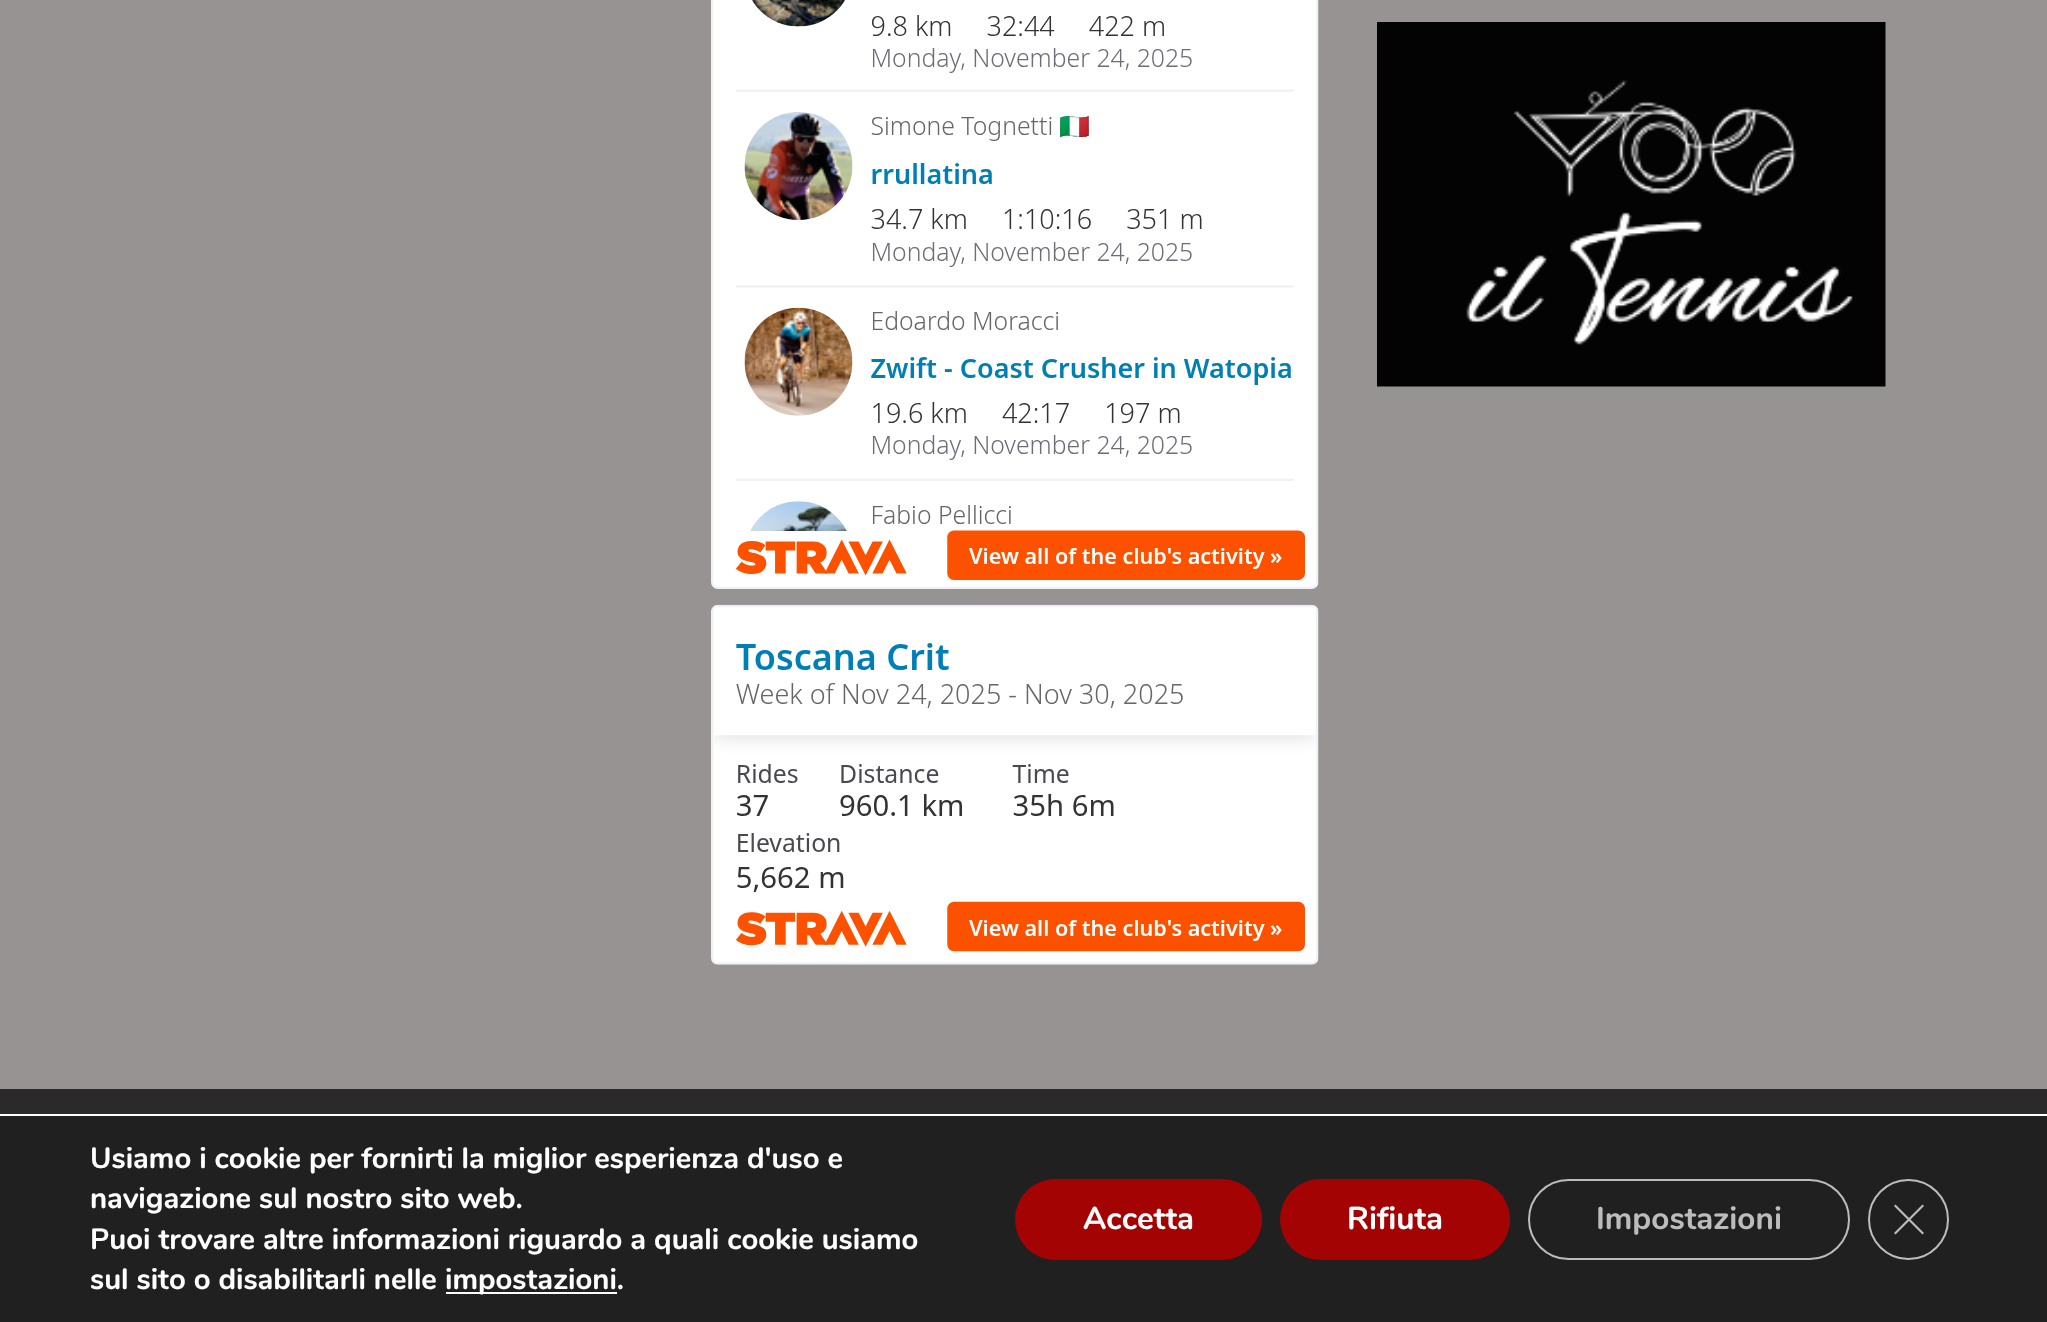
void draw(SkCanvas* canvas) {
	SkPaint paint;
	paint.setAntiAlias(true);
	auto svgPath = [&](const char* data, bool evenOdd = false) {
		SkPath result = *SkParsePath::FromSVGString(data);
		if (evenOdd) result.setFillType(SkPathFillType::kEvenOdd);
		return result;
	};
	canvas->clear(0xff979393);
	canvas->drawImageRect(SkImages::DeferredFromEncodedData(SkData::MakeFromFileName("img1.png")), SkRect::MakeXYWH(711, 0, 608, 589), SkSamplingOptions());
	canvas->drawImageRect(SkImages::DeferredFromEncodedData(SkData::MakeFromFileName("img2.png")), SkRect::MakeXYWH(711, 604, 608, 361), SkSamplingOptions());
	canvas->drawImageRect(SkImages::DeferredFromEncodedData(SkData::MakeFromFileName("img3.png")), SkRect::MakeXYWH(1377, 22, 509, 365), SkSamplingOptions());
	paint.setColor(0xff2a2a2a);
	canvas->drawRect(SkRect::MakeXYWH(0, 1089, 2047, 25), paint);
	paint.setColor(0xff202020);
	canvas->drawRect(SkRect::MakeXYWH(0, 1116, 2047, 206), paint);
	paint.setColor(0xffffffff);
	canvas->drawRect(SkRect::MakeXYWH(0, 1114, 2047, 2), paint);
	SkFont f1(fontMgr->matchFamilyStyle("Nunito", SkFontStyle::Bold()), 29.25);
	f1.setSubpixel(true);
	canvas->drawString("Usiamo i cookie per fornirti la miglior esperienza d'uso e", 90, 1168, f1, paint);
	canvas->drawString("navigazione sul nostro sito web.", 90, 1208, f1, paint);
	canvas->drawString("Puoi trovare altre informazioni riguardo a quali cookie usiamo", 90, 1249, f1, paint);
	canvas->drawString("sul sito o disabilitarli nelle", 90, 1289, f1, paint);
	canvas->drawRect(SkRect::MakeXYWH(446, 1292, 171, 2), paint);
	canvas->drawString("impostazioni.", 445, 1289, f1, paint);
	paint.setColor(0xffa40303);
	canvas->drawRoundRect(SkRect::MakeXYWH(1015, 1179, 247, 81), 40.5, 40.5, paint);
	SkFont f2(fontMgr->matchFamilyStyle("Nunito", SkFontStyle::Bold()), 31.5);
	f2.setSubpixel(true);
	paint.setColor(0xffffffff);
	canvas->drawString("Accetta", 1083, 1229, f2, paint);
	paint.setColor(0xffa40303);
	canvas->drawRoundRect(SkRect::MakeXYWH(1280, 1179, 230, 81), 40.5, 40.5, paint);
	paint.setColor(0xffffffff);
	canvas->drawString("Rifiuta", 1347, 1229, f2, paint);
	paint.setStroke(true);
	paint.setStrokeWidth(2);
	paint.setColor(0xffbcbcbc);
	canvas->drawRoundRect(SkRect::MakeXYWH(1529, 1180, 320, 79), 39.5, 39.5, paint);
	paint.setStroke(false);
	canvas->drawString("Impostazioni", 1596, 1229, f2, paint);
	paint.setStroke(true);
	canvas->drawCircle(1908.5, 1219.5, 39.5, paint);
	paint.setStroke(false);
	canvas->drawPath(svgPath("M1922.5 1204.5L1924 1206L1895.5 1234.5L1894 1233Z"), paint);
	canvas->drawPath(svgPath("M1894 1206L1895.5 1204.5L1924 1233L1922.5 1234.5Z"), paint);
}
